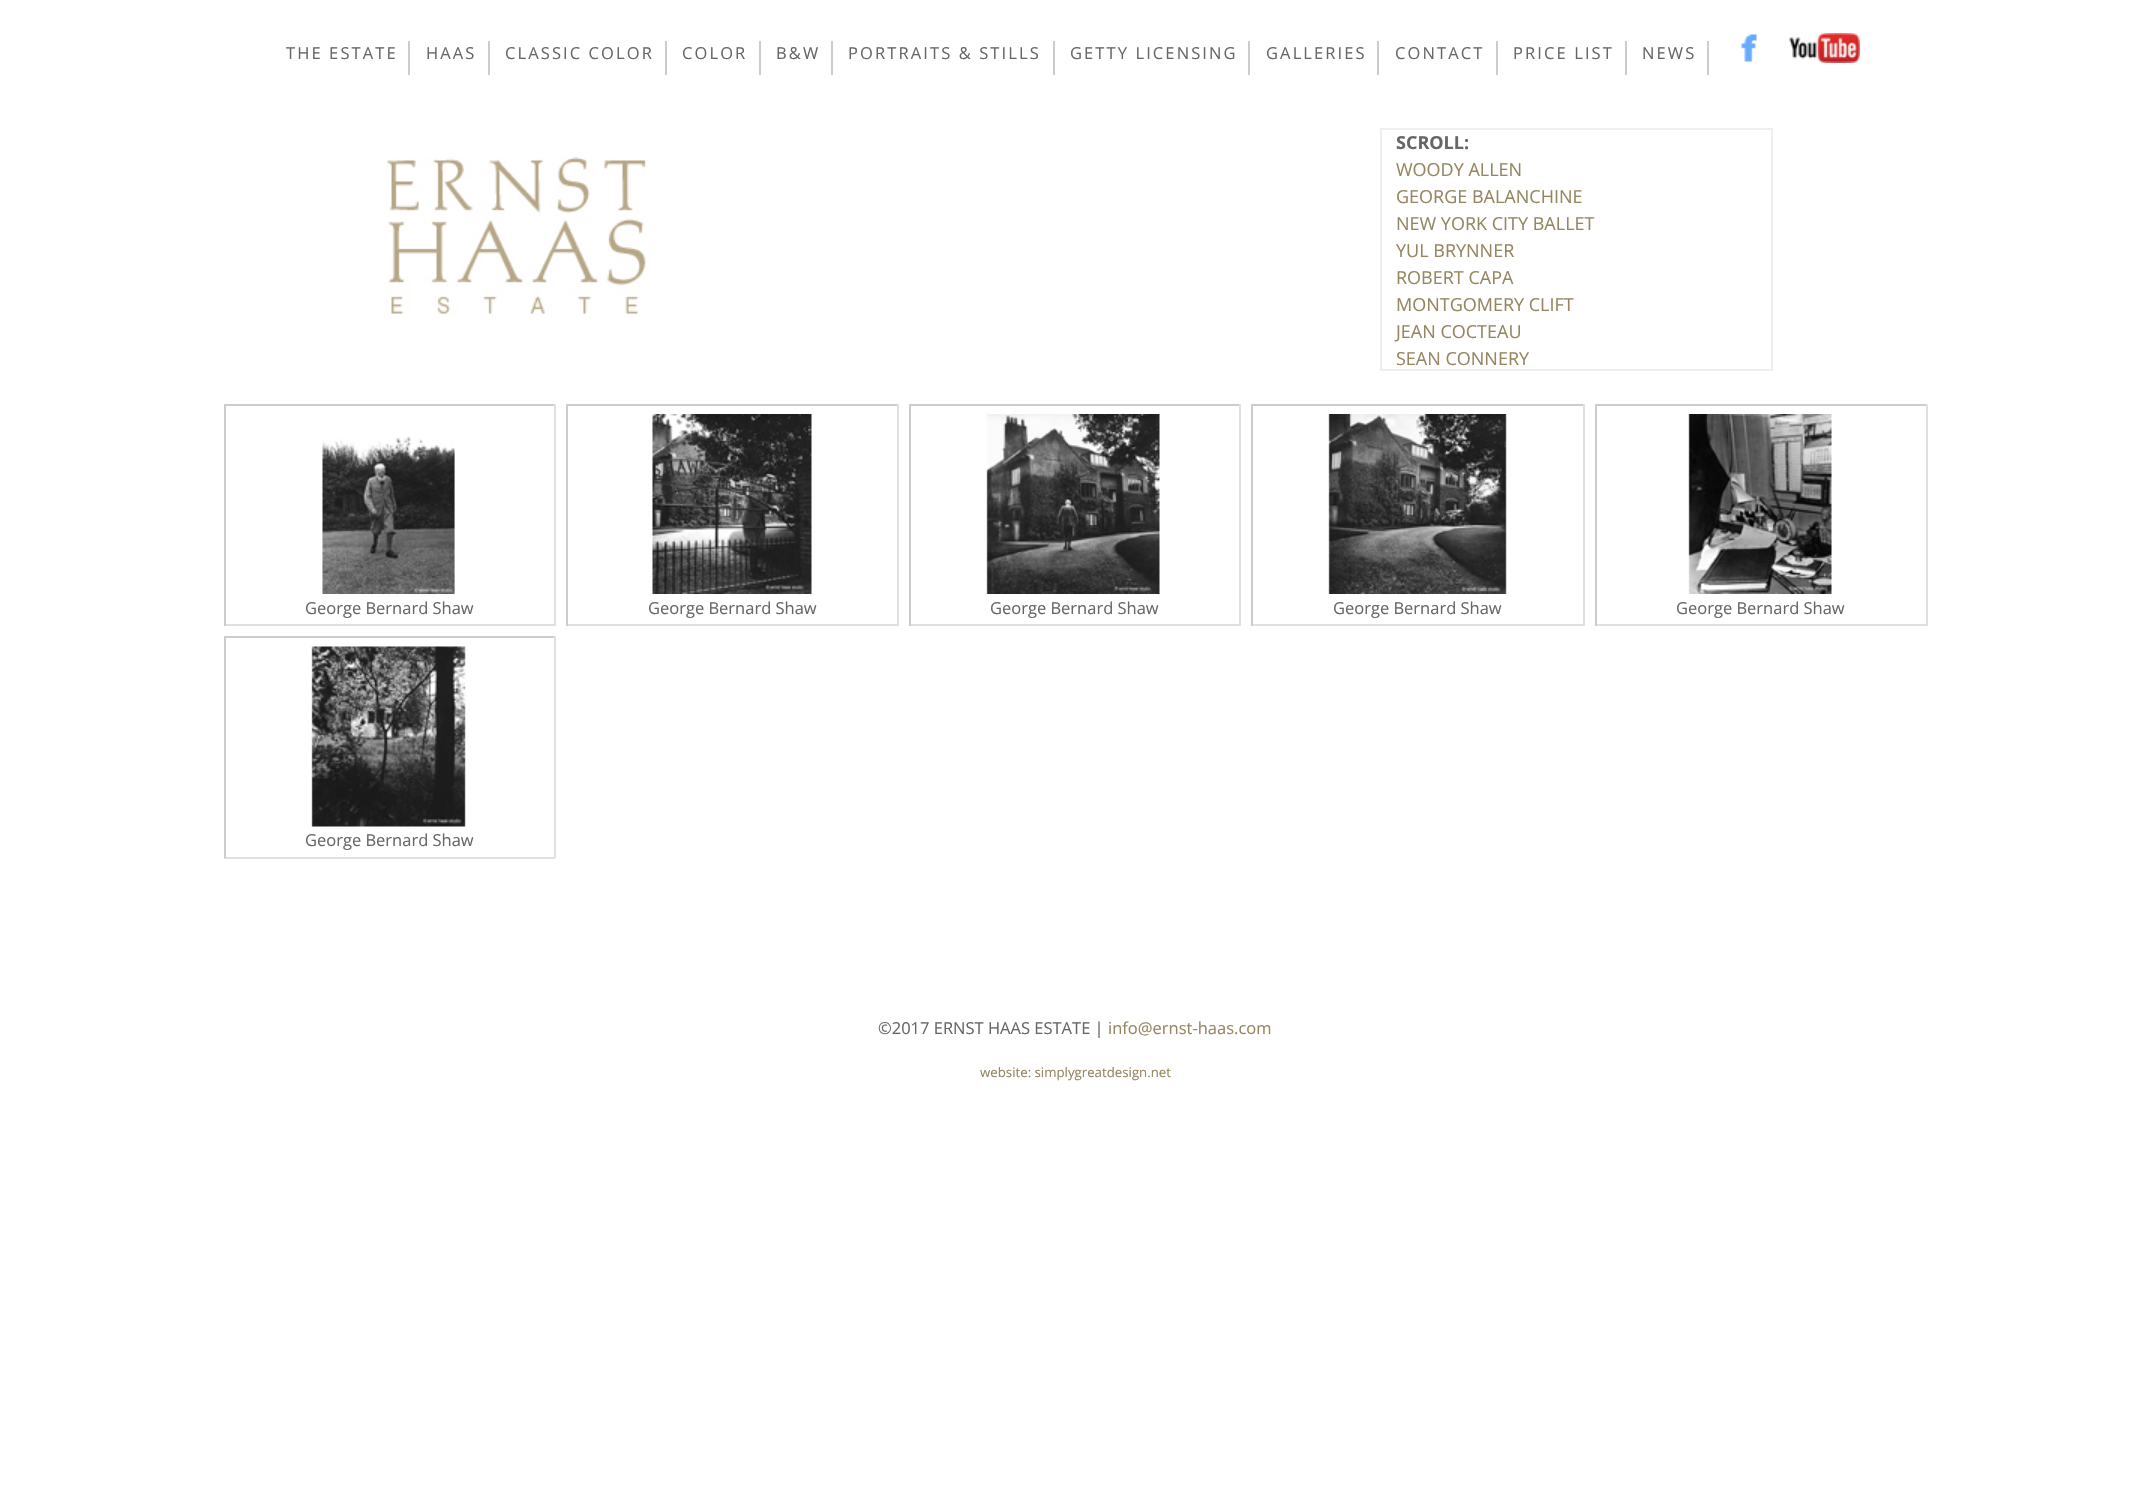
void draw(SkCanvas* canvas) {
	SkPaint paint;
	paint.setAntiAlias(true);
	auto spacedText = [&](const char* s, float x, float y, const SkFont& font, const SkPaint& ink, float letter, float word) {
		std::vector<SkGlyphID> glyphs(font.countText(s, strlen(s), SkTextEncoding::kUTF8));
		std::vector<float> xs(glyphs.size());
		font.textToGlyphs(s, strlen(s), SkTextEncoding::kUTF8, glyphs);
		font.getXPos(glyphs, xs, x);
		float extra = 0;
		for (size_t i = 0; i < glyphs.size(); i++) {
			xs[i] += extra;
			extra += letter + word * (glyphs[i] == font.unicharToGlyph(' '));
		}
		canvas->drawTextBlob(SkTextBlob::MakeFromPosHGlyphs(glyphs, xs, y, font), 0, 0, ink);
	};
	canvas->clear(0xffffffff);
	paint.setColor(0xffcccccc);
	canvas->drawRect(SkRect::MakeXYWH(408, 41, 2, 34), paint);
	SkFont f1(fontMgr->matchFamilyStyle("Open Sans", SkFontStyle::Normal()), 16.5);
	f1.setSubpixel(true);
	paint.setColor(0xff666666);
	spacedText("THE ESTATE", 286, 59, f1, paint, 2.1, 0);
	paint.setColor(0xffcccccc);
	canvas->drawRect(SkRect::MakeXYWH(488, 41, 2, 34), paint);
	paint.setColor(0xff666666);
	spacedText("HAAS", 426, 59, f1, paint, 2.1, 0);
	paint.setColor(0xffcccccc);
	canvas->drawRect(SkRect::MakeXYWH(665, 41, 2, 34), paint);
	paint.setColor(0xff666666);
	spacedText("CLASSIC COLOR", 505, 59, f1, paint, 2.1, 0);
	paint.setColor(0xffcccccc);
	canvas->drawRect(SkRect::MakeXYWH(759, 41, 2, 34), paint);
	paint.setColor(0xff666666);
	spacedText("COLOR", 682, 59, f1, paint, 2.1, 0);
	paint.setColor(0xffcccccc);
	canvas->drawRect(SkRect::MakeXYWH(831, 41, 2, 34), paint);
	paint.setColor(0xff666666);
	spacedText("B&W", 776, 59, f1, paint, 2.1, 0);
	paint.setColor(0xffcccccc);
	canvas->drawRect(SkRect::MakeXYWH(1053, 41, 2, 34), paint);
	paint.setColor(0xff666666);
	spacedText("PORTRAITS & STILLS", 848, 59, f1, paint, 2.1, 0);
	paint.setColor(0xffcccccc);
	canvas->drawRect(SkRect::MakeXYWH(1248, 41, 2, 34), paint);
	paint.setColor(0xff666666);
	spacedText("GETTY LICENSING", 1070, 59, f1, paint, 2.1, 0);
	paint.setColor(0xffcccccc);
	canvas->drawRect(SkRect::MakeXYWH(1377, 41, 2, 34), paint);
	paint.setColor(0xff666666);
	spacedText("GALLERIES", 1266, 59, f1, paint, 2.1, 0);
	paint.setColor(0xffcccccc);
	canvas->drawRect(SkRect::MakeXYWH(1496, 41, 2, 34), paint);
	paint.setColor(0xff666666);
	spacedText("CONTACT", 1395, 59, f1, paint, 2.1, 0);
	paint.setColor(0xffcccccc);
	canvas->drawRect(SkRect::MakeXYWH(1625, 41, 2, 34), paint);
	paint.setColor(0xff666666);
	spacedText("PRICE LIST", 1513, 59, f1, paint, 2.1, 0);
	paint.setColor(0xffcccccc);
	canvas->drawRect(SkRect::MakeXYWH(1707, 41, 2, 34), paint);
	paint.setColor(0xff666666);
	spacedText("NEWS", 1642, 59, f1, paint, 2.1, 0);
	canvas->drawImageRect(SkImages::DeferredFromEncodedData(SkData::MakeFromFileName("img1.png")), SkRect::MakeXYWH(1741, 34, 16, 28), SkSamplingOptions());
	canvas->drawImageRect(SkImages::DeferredFromEncodedData(SkData::MakeFromFileName("img2.png")), SkRect::MakeXYWH(1789, 33, 71, 30), SkSamplingOptions());
	canvas->drawImageRect(SkImages::DeferredFromEncodedData(SkData::MakeFromFileName("img3.png")), SkRect::MakeXYWH(386, 157, 260, 159), SkSamplingOptions());
	paint.setStroke(true);
	paint.setStrokeWidth(2);
	paint.setColor(0xffeeeeee);
	canvas->drawRect(SkRect::MakeXYWH(1381, 129, 391, 241), paint);
	SkFont f2(fontMgr->matchFamilyStyle("Open Sans", SkFontStyle::Bold()), 18);
	f2.setSubpixel(true);
	paint.setStroke(false);
	paint.setColor(0xff666666);
	canvas->drawString("SCROLL:", 1396, 149, f2, paint);
	SkFont f3(fontMgr->matchFamilyStyle("Open Sans", SkFontStyle::Normal()), 18);
	f3.setSubpixel(true);
	paint.setColor(0xff958661);
	canvas->drawString("WOODY ALLEN", 1396, 176, f3, paint);
	canvas->drawString("GEORGE BALANCHINE", 1396, 203, f3, paint);
	canvas->drawString("NEW YORK CITY BALLET", 1396, 230, f3, paint);
	canvas->drawString("YUL BRYNNER", 1396, 257, f3, paint);
	canvas->drawString("ROBERT CAPA", 1396, 284, f3, paint);
	canvas->drawString("MONTGOMERY CLIFT", 1396, 311, f3, paint);
	canvas->drawString("JEAN COCTEAU", 1396, 338, f3, paint);
	canvas->drawString("SEAN CONNERY", 1396, 365, f3, paint);
	paint.setColor(0xffcccccc);
	canvas->drawRect(SkRect::MakeXYWH(224, 404, 331, 2), paint);
	paint.setColor(0xffe0e0e0);
	canvas->drawRect(SkRect::MakeXYWH(554, 404, 2, 222), paint);
	canvas->drawRect(SkRect::MakeXYWH(224, 624, 331, 2), paint);
	paint.setColor(0xffcccccc);
	canvas->drawRect(SkRect::MakeXYWH(224, 404, 2, 222), paint);
	canvas->drawImageRect(SkImages::DeferredFromEncodedData(SkData::MakeFromFileName("img4.png")), SkRect::MakeXYWH(322, 436, 133, 158), SkSamplingOptions());
	paint.setColor(0xff666666);
	canvas->drawString("George Bernard Shaw", 305, 614, f1, paint);
	paint.setColor(0xffcccccc);
	canvas->drawRect(SkRect::MakeXYWH(566, 404, 333, 2), paint);
	paint.setColor(0xffe0e0e0);
	canvas->drawRect(SkRect::MakeXYWH(897, 404, 2, 222), paint);
	canvas->drawRect(SkRect::MakeXYWH(566, 624, 333, 2), paint);
	paint.setColor(0xffcccccc);
	canvas->drawRect(SkRect::MakeXYWH(566, 404, 2, 222), paint);
	canvas->drawImageRect(SkImages::DeferredFromEncodedData(SkData::MakeFromFileName("img5.png")), SkRect::MakeXYWH(652, 414, 160, 180), SkSamplingOptions());
	paint.setColor(0xff666666);
	canvas->drawString("George Bernard Shaw", 648, 614, f1, paint);
	paint.setColor(0xffcccccc);
	canvas->drawRect(SkRect::MakeXYWH(909, 404, 332, 2), paint);
	paint.setColor(0xffe0e0e0);
	canvas->drawRect(SkRect::MakeXYWH(1239, 404, 2, 222), paint);
	canvas->drawRect(SkRect::MakeXYWH(909, 624, 332, 2), paint);
	paint.setColor(0xffcccccc);
	canvas->drawRect(SkRect::MakeXYWH(909, 404, 2, 222), paint);
	canvas->drawImageRect(SkImages::DeferredFromEncodedData(SkData::MakeFromFileName("img6.png")), SkRect::MakeXYWH(986, 414, 174, 180), SkSamplingOptions());
	paint.setColor(0xff666666);
	canvas->drawString("George Bernard Shaw", 990, 614, f1, paint);
	paint.setColor(0xffcccccc);
	canvas->drawRect(SkRect::MakeXYWH(1251, 404, 333, 2), paint);
	paint.setColor(0xffe0e0e0);
	canvas->drawRect(SkRect::MakeXYWH(1583, 404, 2, 222), paint);
	canvas->drawRect(SkRect::MakeXYWH(1251, 624, 333, 2), paint);
	paint.setColor(0xffcccccc);
	canvas->drawRect(SkRect::MakeXYWH(1251, 404, 2, 222), paint);
	canvas->drawImageRect(SkImages::DeferredFromEncodedData(SkData::MakeFromFileName("img7.png")), SkRect::MakeXYWH(1328, 414, 179, 180), SkSamplingOptions());
	paint.setColor(0xff666666);
	canvas->drawString("George Bernard Shaw", 1333, 614, f1, paint);
	paint.setColor(0xffcccccc);
	canvas->drawRect(SkRect::MakeXYWH(1595, 404, 333, 2), paint);
	paint.setColor(0xffe0e0e0);
	canvas->drawRect(SkRect::MakeXYWH(1926, 404, 2, 222), paint);
	canvas->drawRect(SkRect::MakeXYWH(1595, 624, 333, 2), paint);
	paint.setColor(0xffcccccc);
	canvas->drawRect(SkRect::MakeXYWH(1595, 404, 2, 222), paint);
	canvas->drawImageRect(SkImages::DeferredFromEncodedData(SkData::MakeFromFileName("img8.png")), SkRect::MakeXYWH(1688, 414, 144, 180), SkSamplingOptions());
	paint.setColor(0xff666666);
	canvas->drawString("George Bernard Shaw", 1676, 614, f1, paint);
	paint.setColor(0xffcccccc);
	canvas->drawRect(SkRect::MakeXYWH(224, 636, 331, 2), paint);
	paint.setColor(0xffe0e0e0);
	canvas->drawRect(SkRect::MakeXYWH(554, 636, 2, 222), paint);
	canvas->drawRect(SkRect::MakeXYWH(224, 857, 331, 2), paint);
	paint.setColor(0xffcccccc);
	canvas->drawRect(SkRect::MakeXYWH(224, 636, 2, 222), paint);
	canvas->drawImageRect(SkImages::DeferredFromEncodedData(SkData::MakeFromFileName("img9.png")), SkRect::MakeXYWH(311, 646, 155, 181), SkSamplingOptions());
	paint.setColor(0xff666666);
	canvas->drawString("George Bernard Shaw", 305, 846, f1, paint);
	canvas->drawString("©2017 ERNST HAAS ESTATE |", 878, 1034, f1, paint);
	paint.setColor(0xff958661);
	canvas->drawString("info@ernst-haas.com", 1108, 1034, f1, paint);
	SkFont f4(fontMgr->matchFamilyStyle("Open Sans", SkFontStyle::Normal()), 13.25);
	f4.setSubpixel(true);
	canvas->drawString("website: simplygreatdesign.net", 980, 1077, f4, paint);
}
